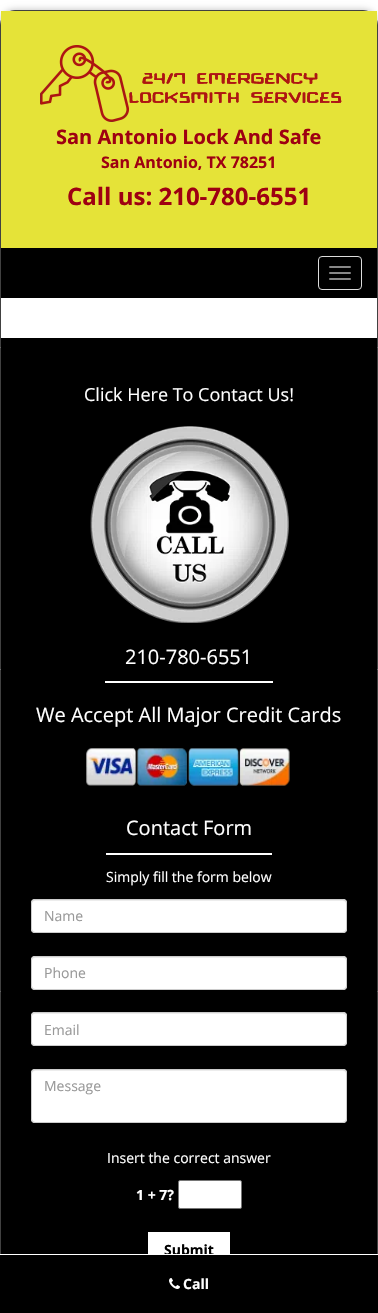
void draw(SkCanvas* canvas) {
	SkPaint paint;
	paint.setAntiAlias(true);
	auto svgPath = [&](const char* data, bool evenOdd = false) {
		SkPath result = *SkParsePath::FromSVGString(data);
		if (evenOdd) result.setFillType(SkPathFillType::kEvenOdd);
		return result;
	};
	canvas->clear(0xffffffff);
	canvas->save();
	canvas->clipPath(svgPath("M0 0H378V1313H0ZM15 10H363C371.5 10 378 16.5 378 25V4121H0V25C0 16.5 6.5 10 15 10Z", true), true);
	paint.setColor(0xffbfbfbf);
	paint.setMaskFilter(SkMaskFilter::MakeBlur(kNormal_SkBlurStyle, 3.5));
	canvas->drawRoundRect(SkRect::MakeXYWH(0, 10, 378, 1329), 15, 15, paint);
	paint.setMaskFilter(nullptr);
	canvas->restore();
	paint.setStroke(true);
	paint.setStrokeWidth(1);
	paint.setColor(0xff414141);
	canvas->drawPath(svgPath("M15 10.5H363C371 10.5 377.5 17 377.5 25V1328.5H.5V25C.5 17 7 10.5 15 10.5Z"), paint);
	paint.setStroke(false);
	paint.setColor(0xffe5e338);
	canvas->drawRect(SkRect::MakeXYWH(1, 11, 376, 237), paint);
	canvas->drawImageRect(SkImages::DeferredFromEncodedData(SkData::MakeFromFileName("img1.png")), SkRect::MakeXYWH(40, 45, 302, 77), SkSamplingOptions());
	SkFont f1(fontMgr->matchFamilyStyle("Open Sans", SkFontStyle::Bold()), 20);
	f1.setSubpixel(true);
	paint.setColor(0xff9e0012);
	canvas->drawString("San Antonio Lock And Safe", 56, 144, f1, paint);
	SkFont f2(fontMgr->matchFamilyStyle("Open Sans", SkFontStyle::Bold()), 16);
	f2.setSubpixel(true);
	canvas->drawString("San Antonio, TX 78251", 101, 168, f2, paint);
	SkFont f3(fontMgr->matchFamilyStyle("Open Sans", SkFontStyle::Bold()), 24);
	f3.setSubpixel(true);
	canvas->drawString("Call us: 210-780-6551", 67, 205, f3, paint);
	paint.setColor(0xff000000);
	canvas->drawRect(SkRect::MakeXYWH(1, 248, 376, 50), paint);
	paint.setStroke(true);
	paint.setColor(0xffdddddd);
	canvas->drawRoundRect(SkRect::MakeXYWH(318.5, 256.5, 43, 33), 3.5, 3.5, paint);
	paint.setStroke(false);
	paint.setColor(0xff888888);
	canvas->drawRoundRect(SkRect::MakeXYWH(329, 266, 22, 2), 1, 1, paint);
	canvas->drawRoundRect(SkRect::MakeXYWH(329, 272, 22, 2), 1, 1, paint);
	canvas->drawRoundRect(SkRect::MakeXYWH(329, 278, 22, 2), 1, 1, paint);
	paint.setColor(0xff000000);
	canvas->drawRect(SkRect::MakeXYWH(1, 338, 376, 916), paint);
	SkFont f4(fontMgr->matchFamilyStyle("Open Sans", SkFontStyle::Normal()), 18);
	f4.setSubpixel(true);
	paint.setColor(0xffffffff);
	canvas->drawString("Click Here To Contact Us!", 84, 401, f4, paint);
	canvas->drawImageRect(SkImages::DeferredFromEncodedData(SkData::MakeFromFileName("img2.png")), SkRect::MakeXYWH(90, 426, 199, 197), SkSamplingOptions());
	canvas->drawRect(SkRect::MakeXYWH(105, 681, 168, 2), paint);
	SkFont f5(fontMgr->matchFamilyStyle("Open Sans", SkFontStyle::Normal()), 20);
	f5.setSubpixel(true);
	canvas->drawString("210-780-6551", 125, 664, f5, paint);
	canvas->drawString("We Accept All Major Credit Cards", 36, 722, f5, paint);
	canvas->drawImageRect(SkImages::DeferredFromEncodedData(SkData::MakeFromFileName("img3.png")), SkRect::MakeXYWH(86, 748, 204, 38), SkSamplingOptions());
	canvas->drawRect(SkRect::MakeXYWH(106, 853, 166, 2), paint);
	canvas->drawString("Contact Form", 126, 835, f5, paint);
	SkFont f6(fontMgr->matchFamilyStyle("Open Sans", SkFontStyle::Normal()), 14);
	f6.setSubpixel(true);
	canvas->drawString("Simply fill the form below", 106, 882, f6, paint);
	canvas->drawRoundRect(SkRect::MakeXYWH(31, 899, 316, 34), 4, 4, paint);
	paint.setColor(0xffececec);
	canvas->drawPath(svgPath("M35 901H343C345 901 346 902 346 904L345 901L344 900H35C33 900 32 902 32 904C32 902 33 901 35 901Z"), paint);
	paint.setStroke(true);
	paint.setColor(0xffcccccc);
	canvas->drawRoundRect(SkRect::MakeXYWH(31.5, 899.5, 315, 33), 3.5, 3.5, paint);
	paint.setStroke(false);
	paint.setColor(0xff999999);
	canvas->drawString("Name", 44, 921, f6, paint);
	paint.setColor(0xffffffff);
	canvas->drawRoundRect(SkRect::MakeXYWH(31, 956, 316, 34), 4, 4, paint);
	paint.setColor(0xffececec);
	canvas->drawPath(svgPath("M35 958H343C345 958 346 959 346 961L345 958L344 957H35C33 957 32 959 32 961C32 959 33 958 35 958Z"), paint);
	paint.setStroke(true);
	paint.setColor(0xffcccccc);
	canvas->drawRoundRect(SkRect::MakeXYWH(31.5, 956.5, 315, 33), 3.5, 3.5, paint);
	paint.setStroke(false);
	paint.setColor(0xff999999);
	canvas->drawString("Phone", 44, 978, f6, paint);
	paint.setColor(0xffffffff);
	canvas->drawRoundRect(SkRect::MakeXYWH(31, 1012, 316, 34), 4, 4, paint);
	paint.setColor(0xffececec);
	canvas->drawPath(svgPath("M35 1014H343C345 1014 346 1015 346 1017L345 1014L344 1013H35C33 1013 32 1015 32 1017C32 1015 33 1014 35 1014Z"), paint);
	paint.setStroke(true);
	paint.setColor(0xffcccccc);
	canvas->drawRoundRect(SkRect::MakeXYWH(31.5, 1012.5, 315, 33), 3.5, 3.5, paint);
	paint.setStroke(false);
	paint.setColor(0xff999999);
	canvas->drawString("Email", 44, 1035, f6, paint);
	paint.setColor(0xffffffff);
	canvas->drawRoundRect(SkRect::MakeXYWH(31, 1069, 316, 54), 4, 4, paint);
	paint.setColor(0xffececec);
	canvas->drawPath(svgPath("M35 1071H343C345 1071 346 1072 346 1074L345 1071L344 1070H35C33 1070 32 1072 32 1074C32 1072 33 1071 35 1071Z"), paint);
	paint.setStroke(true);
	paint.setColor(0xffcccccc);
	canvas->drawRoundRect(SkRect::MakeXYWH(31.5, 1069.5, 315, 53), 3.5, 3.5, paint);
	paint.setStroke(false);
	paint.setColor(0xff999999);
	canvas->drawString("Message", 44, 1091, f6, paint);
	paint.setColor(0xffffffff);
	canvas->drawString("Insert the correct answer", 107, 1163, f6, paint);
	SkFont f7(fontMgr->matchFamilyStyle("Open Sans", SkFontStyle::Bold()), 14);
	f7.setSubpixel(true);
	canvas->drawString("1 + 7?", 136, 1200, f7, paint);
	canvas->drawRoundRect(SkRect::MakeXYWH(178.5, 1180.5, 63, 28), 1.5, 1.5, paint);
	paint.setStroke(true);
	paint.setColor(0xff767676);
	canvas->drawRoundRect(SkRect::MakeXYWH(178.5, 1180.5, 63, 28), 1.5, 1.5, paint);
	paint.setStroke(false);
	paint.setColor(0xffffffff);
	canvas->drawRect(SkRect::MakeXYWH(148, 1232, 82, 22), paint);
	paint.setColor(0xff000000);
	canvas->drawString("Submit", 164, 1255, f7, paint);
	canvas->drawRect(SkRect::MakeXYWH(0, 1255, 378, 58), paint);
	paint.setColor(0xffffffff);
	canvas->drawRect(SkRect::MakeXYWH(0, 1254, 378, 1), paint);
	canvas->drawImageRect(SkImages::DeferredFromEncodedData(SkData::MakeFromFileName("img4.png")), SkRect::MakeXYWH(169, 1278, 11, 11), SkSamplingOptions());
	canvas->drawString("Call", 183, 1289, f7, paint);
}
